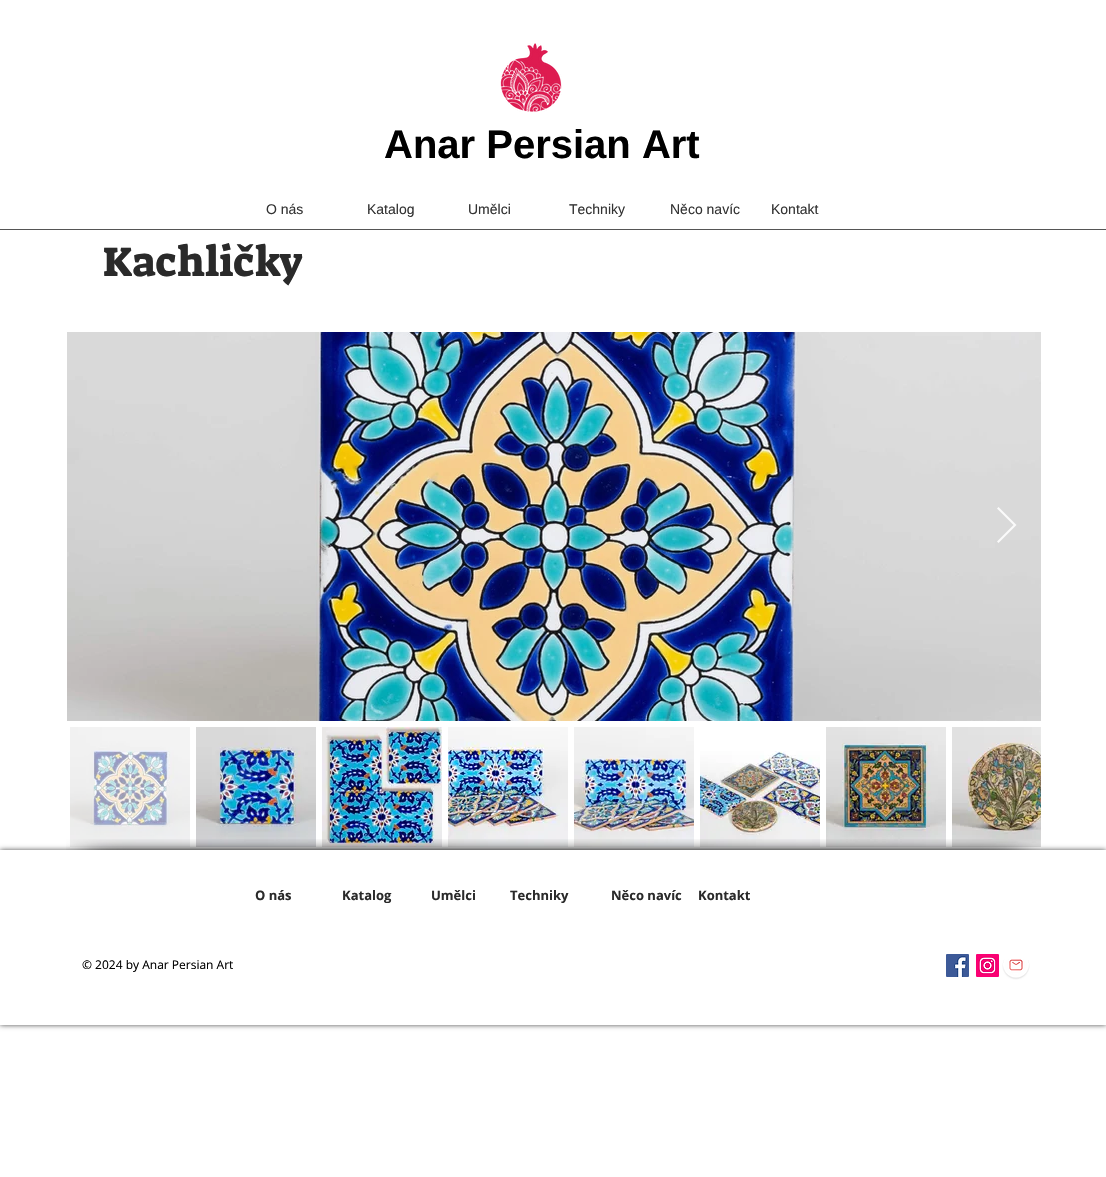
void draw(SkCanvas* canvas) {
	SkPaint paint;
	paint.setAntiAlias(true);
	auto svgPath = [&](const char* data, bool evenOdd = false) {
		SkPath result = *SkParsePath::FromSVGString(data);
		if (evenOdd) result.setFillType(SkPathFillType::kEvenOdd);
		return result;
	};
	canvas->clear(0xffffffff);
	canvas->drawImageRect(SkImages::DeferredFromEncodedData(SkData::MakeFromFileName("img1.png")), SkRect::MakeXYWH(500, 43, 62, 69), SkSamplingOptions());
	SkFont f1(fontMgr->matchFamilyStyle("Liberation Sans", SkFontStyle::Bold()), 40);
	f1.setSubpixel(true);
	paint.setColor(0xff000000);
	canvas->drawString("Anar Persian Art", 384, 158, f1, paint);
	SkFont f2(fontMgr->matchFamilyStyle("Liberation Sans", SkFontStyle::Normal()), 14);
	f2.setSubpixel(true);
	paint.setColor(0xff333333);
	canvas->drawString("O nás", 266, 214, f2, paint);
	canvas->drawString("Katalog", 367, 214, f2, paint);
	canvas->drawString("Umělci", 468, 214, f2, paint);
	canvas->drawString("Techniky", 569, 214, f2, paint);
	canvas->drawString("Něco navíc", 670, 214, f2, paint);
	canvas->drawString("Kontakt", 771, 214, f2, paint);
	paint.setColor(0xff555555);
	canvas->drawRect(SkRect::MakeXYWH(0, 229, 1106, 1), paint);
	SkFont f3(fontMgr->matchFamilyStyle("Suez One", SkFontStyle::Normal()), 42);
	f3.setSubpixel(true);
	paint.setColor(0xff2a2a2a);
	canvas->drawString("Kachličky", 103, 276, f3, paint);
	canvas->drawImageRect(SkImages::DeferredFromEncodedData(SkData::MakeFromFileName("img2.png")), SkRect::MakeXYWH(67, 332, 974, 389), SkSamplingOptions());
	paint.setColor(0xfffbfbfb);
	canvas->drawPath(svgPath("M997 508.5L998.5 507L1016.5 525L998.5 543L997 541.5L1013.5 525Z"), paint);
	canvas->drawImageRect(SkImages::DeferredFromEncodedData(SkData::MakeFromFileName("img3.png")), SkRect::MakeXYWH(70, 727, 120, 120), SkSamplingOptions());
	canvas->drawImageRect(SkImages::DeferredFromEncodedData(SkData::MakeFromFileName("img4.png")), SkRect::MakeXYWH(196, 727, 120, 120), SkSamplingOptions());
	canvas->drawImageRect(SkImages::DeferredFromEncodedData(SkData::MakeFromFileName("img5.png")), SkRect::MakeXYWH(322, 727, 120, 120), SkSamplingOptions());
	canvas->drawImageRect(SkImages::DeferredFromEncodedData(SkData::MakeFromFileName("img6.png")), SkRect::MakeXYWH(448, 727, 120, 120), SkSamplingOptions());
	canvas->drawImageRect(SkImages::DeferredFromEncodedData(SkData::MakeFromFileName("img7.png")), SkRect::MakeXYWH(574, 727, 120, 120), SkSamplingOptions());
	canvas->drawImageRect(SkImages::DeferredFromEncodedData(SkData::MakeFromFileName("img8.png")), SkRect::MakeXYWH(700, 751, 120, 96), SkSamplingOptions());
	canvas->drawImageRect(SkImages::DeferredFromEncodedData(SkData::MakeFromFileName("img9.png")), SkRect::MakeXYWH(826, 727, 120, 120), SkSamplingOptions());
	canvas->drawImageRect(SkImages::DeferredFromEncodedData(SkData::MakeFromFileName("img10.png")), SkRect::MakeXYWH(952, 727, 89, 120), SkSamplingOptions());
	canvas->save();
	canvas->clipPath(svgPath("M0 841H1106V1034H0ZM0 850H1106V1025H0Z", true), true);
	paint.setColor(0xb3000000);
	paint.setMaskFilter(SkMaskFilter::MakeBlur(kNormal_SkBlurStyle, 2.5));
	canvas->drawRect(SkRect::MakeXYWH(0, 850, 1106, 175), paint);
	paint.setMaskFilter(nullptr);
	canvas->restore();
	canvas->drawImageRect(SkImages::DeferredFromEncodedData(SkData::MakeFromFileName("img11.png")), SkRect::MakeXYWH(66, 839, 97, 11), SkSamplingOptions());
	canvas->drawImageRect(SkImages::DeferredFromEncodedData(SkData::MakeFromFileName("img12.png")), SkRect::MakeXYWH(163, 839, 780, 11), SkSamplingOptions());
	canvas->drawImageRect(SkImages::DeferredFromEncodedData(SkData::MakeFromFileName("img13.png")), SkRect::MakeXYWH(943, 839, 97, 11), SkSamplingOptions());
	SkFont f4(fontMgr->matchFamilyStyle("Open Sans", SkFontStyle::Bold()), 13);
	f4.setSubpixel(true);
	paint.setColor(0xff2a2a2a);
	canvas->drawString("O nás", 255, 900, f4, paint);
	canvas->drawString("Katalog", 342, 900, f4, paint);
	canvas->drawString("Umělci", 431, 900, f4, paint);
	canvas->drawString("Techniky", 510, 900, f4, paint);
	canvas->drawString("Něco navíc", 611, 900, f4, paint);
	canvas->drawString("Kontakt", 698, 900, f4, paint);
	SkFont f5(fontMgr->matchFamilyStyle("Open Sans", SkFontStyle::Normal()), 12);
	f5.setSubpixel(true);
	paint.setColor(0xff000000);
	canvas->drawString("© 2024 by Anar Persian Art", 82, 969, f5, paint);
	canvas->drawImageRect(SkImages::DeferredFromEncodedData(SkData::MakeFromFileName("img14.png")), SkRect::MakeXYWH(946, 954, 23, 23), SkSamplingOptions());
	canvas->drawImageRect(SkImages::DeferredFromEncodedData(SkData::MakeFromFileName("img15.png")), SkRect::MakeXYWH(976, 954, 23, 23), SkSamplingOptions());
	canvas->drawImageRect(SkImages::DeferredFromEncodedData(SkData::MakeFromFileName("img16.png")), SkRect::MakeXYWH(1002, 959, 28, 21), SkSamplingOptions());
}
